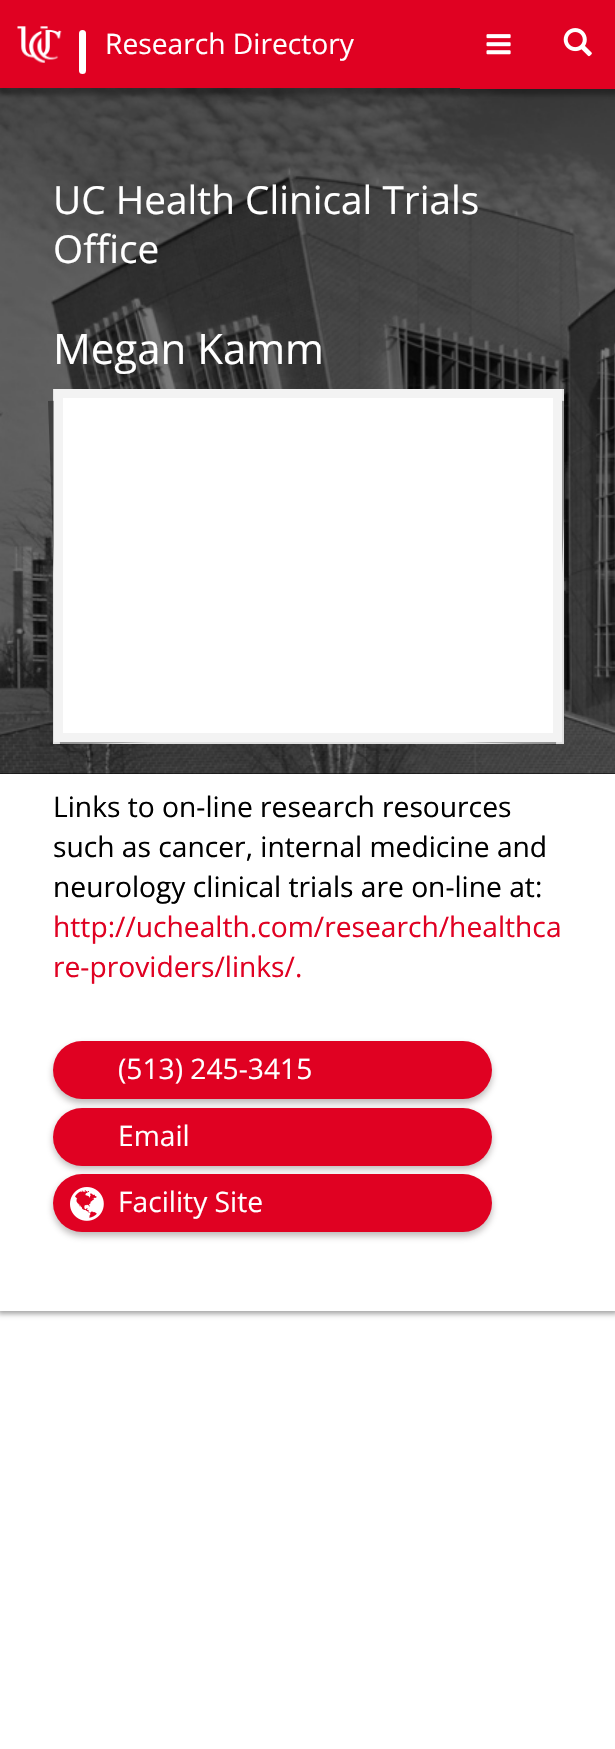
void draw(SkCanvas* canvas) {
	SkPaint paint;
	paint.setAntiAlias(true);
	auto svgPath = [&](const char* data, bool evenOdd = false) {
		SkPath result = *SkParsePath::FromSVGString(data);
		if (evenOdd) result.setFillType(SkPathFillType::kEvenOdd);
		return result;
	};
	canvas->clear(0xffffffff);
	canvas->save();
	canvas->clipPath(svgPath("M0 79H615V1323H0ZM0 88H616V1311H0Z", true), true);
	paint.setColor(0x59000000);
	paint.setMaskFilter(SkMaskFilter::MakeBlur(kNormal_SkBlurStyle, 2.5));
	canvas->drawRect(SkRect::MakeXYWH(-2, 88, 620, 1226), paint);
	paint.setMaskFilter(nullptr);
	canvas->restore();
	paint.setColor(0xff000000);
	canvas->drawRect(SkRect::MakeXYWH(0, 773, 615, 1), paint);
	canvas->drawImageRect(SkImages::DeferredFromEncodedData(SkData::MakeFromFileName("img4.png")), SkRect::MakeXYWH(0, 88, 615, 686), SkSamplingOptions());
	paint.setColor(0x59000000);
	paint.setMaskFilter(SkMaskFilter::MakeBlur(kNormal_SkBlurStyle, 2.5));
	canvas->drawRect(SkRect::MakeXYWH(-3, 0, 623, 95), paint);
	paint.setMaskFilter(nullptr);
	paint.setColor(0xffe00122);
	canvas->drawRect(SkRect::MakeXYWH(0, 0, 460, 88), paint);
	canvas->drawImageRect(SkImages::DeferredFromEncodedData(SkData::MakeFromFileName("img1.png")), SkRect::MakeXYWH(17, 26, 45, 37), SkSamplingOptions());
	paint.setColor(0xffffffff);
	canvas->drawRoundRect(SkRect::MakeXYWH(79, 30, 7, 44), 3.5, 3.5, paint);
	SkFont f1(fontMgr->matchFamilyStyle("Open Sans", SkFontStyle::Normal()), 28.2);
	f1.setSubpixel(true);
	canvas->drawString("Research Directory", 105, 54, f1, paint);
	paint.setColor(0xffe00122);
	canvas->drawRect(SkRect::MakeXYWH(460, 0, 155, 89), paint);
	canvas->drawImageRect(SkImages::DeferredFromEncodedData(SkData::MakeFromFileName("img2.png")), SkRect::MakeXYWH(563, 28, 29, 29), SkSamplingOptions());
	canvas->drawImageRect(SkImages::DeferredFromEncodedData(SkData::MakeFromFileName("img3.png")), SkRect::MakeXYWH(486, 34, 25, 21), SkSamplingOptions());
	SkFont f2(fontMgr->matchFamilyStyle("Open Sans", SkFontStyle::Normal()), 38.75);
	f2.setSubpixel(true);
	paint.setColor(0xffffffff);
	canvas->drawString("UC Health Clinical Trials", 53, 214, f2, paint);
	canvas->drawString("Office", 53, 263, f2, paint);
	SkFont f3(fontMgr->matchFamilyStyle("Open Sans", SkFontStyle::Normal()), 42);
	f3.setSubpixel(true);
	canvas->drawString("Megan Kamm", 53, 364, f3, paint);
	paint.setColor(0xffe2e2e2);
	canvas->drawRect(SkRect::MakeXYWH(562, 389, 2, 355), paint);
	canvas->drawRect(SkRect::MakeXYWH(53, 742, 511, 2), paint);
	canvas->drawRect(SkRect::MakeXYWH(53, 389, 2, 355), paint);
	{
		const SkColor colors[] = {0x59000000, 0x00000000};
		const float stops[] = {0, 1};
		const SkPoint ends[] = {{54, 573}, {308, 564}};
		paint.setShader(SkGradientShader::MakeLinear(ends, colors, stops, 2, SkTileMode::kClamp));
		paint.setAlpha(255);
	}
	canvas->drawPath(svgPath("M48 401L302 392L314 737L60 745Z"), paint);
	{
		const SkColor colors[] = {0x00030303, 0x59030303, 0x59000000};
		const float stops[] = {0, 0.99, 1};
		const SkPoint ends[] = {{308, 564}, {562, 573}};
		paint.setShader(SkGradientShader::MakeLinear(ends, colors, stops, 3, SkTileMode::kClamp));
		paint.setAlpha(255);
	}
	canvas->drawPath(svgPath("M314 392L568 401L556 745L302 737Z"), paint);
	paint.setShader(nullptr);
	paint.setColor(0xffffffff);
	canvas->drawRect(SkRect::MakeXYWH(58.5, 393.5, 499, 344), paint);
	paint.setStroke(true);
	paint.setStrokeWidth(9);
	paint.setColor(0xfff3f3f3);
	canvas->drawRect(SkRect::MakeXYWH(58.5, 393.5, 499, 344), paint);
	paint.setStroke(false);
	paint.setColor(0xff000000);
	canvas->drawString("Links to on-line research resources", 53, 817, f1, paint);
	canvas->drawString("such as cancer, internal medicine and", 53, 857, f1, paint);
	canvas->drawString("neurology clinical trials are on-line at:", 53, 897, f1, paint);
	paint.setColor(0xffe00122);
	canvas->drawString("http://uchealth.com/research/healthca", 53, 937, f1, paint);
	canvas->drawString("re-providers/links/.", 53, 977, f1, paint);
	paint.setColor(0x80776f6f);
	paint.setMaskFilter(SkMaskFilter::MakeBlur(kNormal_SkBlurStyle, 3.5));
	canvas->drawRoundRect(SkRect::MakeXYWH(53, 1045, 439, 58), 29, 29, paint);
	paint.setMaskFilter(nullptr);
	paint.setColor(0xffe00122);
	canvas->drawRoundRect(SkRect::MakeXYWH(53, 1041, 439, 58), 29, 29, paint);
	paint.setColor(0xffffffff);
	canvas->drawString("(513) 245-3415", 118, 1079, f1, paint);
	paint.setColor(0x80776f6f);
	paint.setMaskFilter(SkMaskFilter::MakeBlur(kNormal_SkBlurStyle, 3.5));
	canvas->drawRoundRect(SkRect::MakeXYWH(53, 1111, 439, 58), 29, 29, paint);
	paint.setMaskFilter(nullptr);
	paint.setColor(0xffe00122);
	canvas->drawRoundRect(SkRect::MakeXYWH(53, 1108, 439, 58), 29, 29, paint);
	paint.setColor(0xffffffff);
	canvas->drawString("Email", 118, 1146, f1, paint);
	paint.setColor(0x80776f6f);
	paint.setMaskFilter(SkMaskFilter::MakeBlur(kNormal_SkBlurStyle, 3.5));
	canvas->drawRoundRect(SkRect::MakeXYWH(53, 1178, 439, 58), 29, 29, paint);
	paint.setMaskFilter(nullptr);
	paint.setColor(0xffe00122);
	canvas->drawRoundRect(SkRect::MakeXYWH(53, 1174, 439, 58), 29, 29, paint);
	canvas->drawImageRect(SkImages::DeferredFromEncodedData(SkData::MakeFromFileName("img5.png")), SkRect::MakeXYWH(70, 1187, 34, 34), SkSamplingOptions());
	paint.setColor(0xffffffff);
	canvas->drawString("Facility Site", 118, 1212, f1, paint);
}
